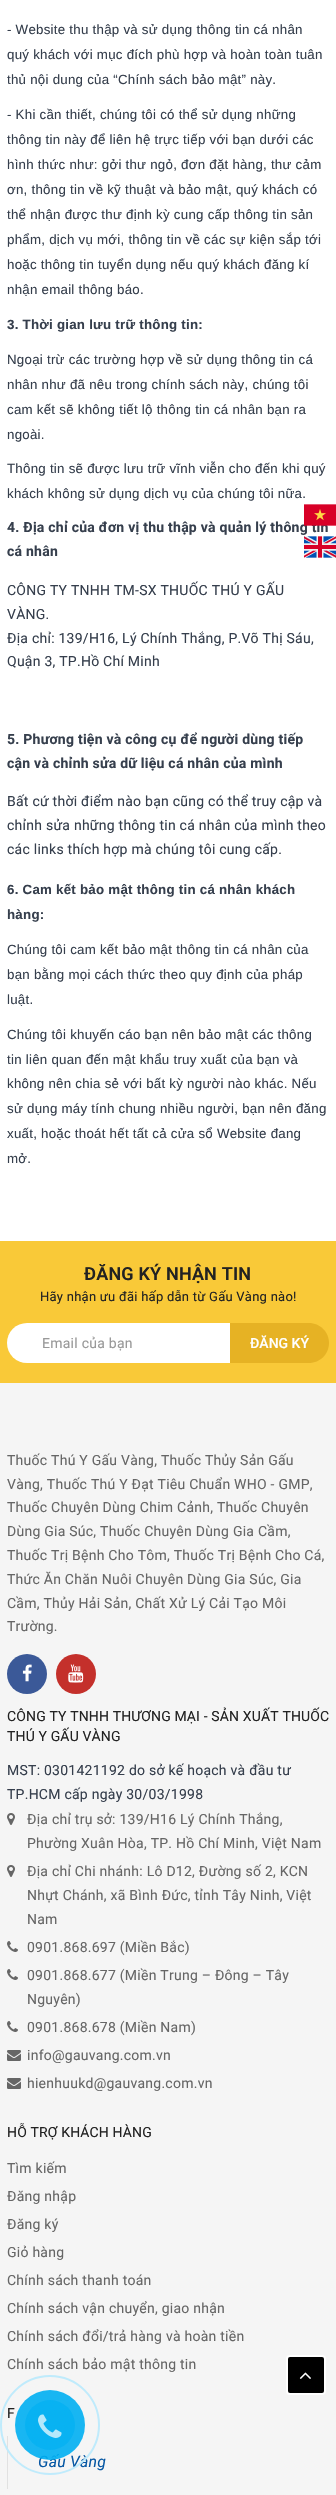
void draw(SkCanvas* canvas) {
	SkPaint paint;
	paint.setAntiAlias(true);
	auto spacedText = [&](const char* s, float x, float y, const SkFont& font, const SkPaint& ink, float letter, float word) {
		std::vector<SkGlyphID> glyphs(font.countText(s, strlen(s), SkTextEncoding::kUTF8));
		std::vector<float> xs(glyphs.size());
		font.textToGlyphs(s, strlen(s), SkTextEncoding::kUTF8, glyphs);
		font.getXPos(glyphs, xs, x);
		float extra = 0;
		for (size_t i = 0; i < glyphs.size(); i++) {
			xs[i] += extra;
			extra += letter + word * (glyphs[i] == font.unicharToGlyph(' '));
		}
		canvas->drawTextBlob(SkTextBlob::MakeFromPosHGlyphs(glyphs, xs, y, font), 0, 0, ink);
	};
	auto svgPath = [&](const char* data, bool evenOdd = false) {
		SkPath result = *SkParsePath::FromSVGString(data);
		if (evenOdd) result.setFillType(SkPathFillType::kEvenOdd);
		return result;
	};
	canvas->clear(0xffffffff);
	SkFont f1(fontMgr->matchFamilyStyle("Liberation Sans", SkFontStyle::Normal()), 13.3);
	f1.setSubpixel(true);
	paint.setColor(0xff363f4d);
	spacedText("- Website thu thập và sử dụng thông tin cá nhân", 7, 34, f1, paint, 0.25, 0);
	spacedText("quý khách với mục đích phù hợp và hoàn toàn tuân", 7, 59, f1, paint, 0.25, 0);
	spacedText("thủ nội dung của “Chính sách bảo mật” này.", 7, 84, f1, paint, 0.25, 0);
	spacedText("- Khi cần thiết, chúng tôi có thể sử dụng những", 7, 119, f1, paint, 0.25, 0);
	spacedText("thông tin này để liên hệ trực tiếp với bạn dưới các", 7, 144, f1, paint, 0.25, 0);
	spacedText("hình thức như: gởi thư ngỏ, đơn đặt hàng, thư cảm", 7, 169, f1, paint, 0.25, 0);
	spacedText("ơn, thông tin về kỹ thuật và bảo mật, quý khách có", 7, 194, f1, paint, 0.25, 0);
	spacedText("thể nhận được thư định kỳ cung cấp thông tin sản", 7, 219, f1, paint, 0.25, 0);
	spacedText("phẩm, dịch vụ mới, thông tin về các sự kiện sắp tới", 7, 244, f1, paint, 0.25, 0);
	spacedText("hoặc thông tin tuyển dụng nếu quý khách đăng kí", 7, 269, f1, paint, 0.25, 0);
	spacedText("nhận email thông báo.", 7, 294, f1, paint, 0.25, 0);
	SkFont f2(fontMgr->matchFamilyStyle("Liberation Sans", SkFontStyle::Bold()), 13.3);
	f2.setSubpixel(true);
	spacedText("3. Thời gian lưu trữ thông tin:", 7, 329, f2, paint, 0.25, 0);
	spacedText("Ngoại trừ các trường hợp về sử dụng thông tin cá", 7, 364, f1, paint, 0.25, 0);
	spacedText("nhân như đã nêu trong chính sách này, chúng tôi", 7, 389, f1, paint, 0.25, 0);
	spacedText("cam kết sẽ không tiết lộ thông tin cá nhân bạn ra", 7, 414, f1, paint, 0.25, 0);
	spacedText("ngoài.", 7, 439, f1, paint, 0.25, 0);
	spacedText("Thông tin sẽ được lưu trữ vĩnh viễn cho đến khi quý", 7, 473, f1, paint, 0.25, 0);
	spacedText("khách không sử dụng dịch vụ của chúng tôi nữa.", 7, 498, f1, paint, 0.25, 0);
	SkFont f3(fontMgr->matchFamilyStyle("Roboto", SkFontStyle::Bold()), 14);
	f3.setSubpixel(true);
	spacedText("4. Địa chỉ của đơn vị thu thập và quản lý thông tin", 7, 532, f3, paint, 0.25, 0);
	spacedText("cá nhân", 7, 556, f3, paint, 0.25, 0);
	SkFont f4(fontMgr->matchFamilyStyle("Roboto", SkFontStyle::Normal()), 14);
	f4.setSubpixel(true);
	spacedText("CÔNG TY TNHH TM-SX THUỐC THÚ Y GẤU", 7, 595, f4, paint, 0.25, 0);
	spacedText("VÀNG.", 7, 619, f4, paint, 0.25, 0);
	spacedText("Địa chỉ: 139/H16, Lý Chính Thắng, P.Võ Thị Sáu,", 7, 643, f4, paint, 0.25, 0);
	spacedText("Quận 3, TP.Hồ Chí Minh", 7, 666, f4, paint, 0.25, 0);
	spacedText("5. Phương tiện và công cụ để người dùng tiếp", 7, 744, f3, paint, 0.25, 0);
	spacedText("cận và chỉnh sửa dữ liệu cá nhân của mình", 7, 768, f3, paint, 0.25, 0);
	spacedText("Bất cứ thời điểm nào bạn cũng có thể truy cập và", 7, 806, f4, paint, 0.25, 0);
	spacedText("chỉnh sửa những thông tin cá nhân của mình theo", 7, 830, f4, paint, 0.25, 0);
	spacedText("các links thích hợp mà chúng tôi cung cấp.", 7, 854, f4, paint, 0.25, 0);
	spacedText("6. Cam kết bảo mật thông tin cá nhân khách", 7, 894, f2, paint, 0.25, 0);
	spacedText("hàng:", 7, 919, f2, paint, 0.25, 0);
	spacedText("Chúng tôi cam kết bảo mật thông tin cá nhân của", 7, 954, f1, paint, 0.25, 0);
	spacedText("bạn bằng mọi cách thức theo quy định của pháp", 7, 979, f1, paint, 0.25, 0);
	spacedText("luật.", 7, 1004, f1, paint, 0.25, 0);
	spacedText("Chúng tôi khuyến cáo bạn nên bảo mật các thông", 7, 1039, f1, paint, 0.25, 0);
	spacedText("tin liên quan đến mật khẩu truy xuất của bạn và", 7, 1064, f1, paint, 0.25, 0);
	spacedText("không nên chia sẻ với bất kỳ người nào khác. Nếu", 7, 1088, f1, paint, 0.25, 0);
	spacedText("sử dụng máy tính chung nhiều người, bạn nên đăng", 7, 1113, f1, paint, 0.25, 0);
	spacedText("xuất, hoặc thoát hết tất cả cửa sổ Website đang", 7, 1138, f1, paint, 0.25, 0);
	spacedText("mở.", 7, 1163, f1, paint, 0.25, 0);
	canvas->drawImageRect(SkImages::DeferredFromEncodedData(SkData::MakeFromFileName("img1.png")), SkRect::MakeXYWH(304, 504, 32, 22), SkSamplingOptions());
	canvas->drawImageRect(SkImages::DeferredFromEncodedData(SkData::MakeFromFileName("img2.png")), SkRect::MakeXYWH(304, 536, 32, 22), SkSamplingOptions());
	paint.setColor(0xfff9c938);
	canvas->drawRect(SkRect::MakeXYWH(0, 1241, 336, 142), paint);
	SkFont f5(fontMgr->matchFamilyStyle("Roboto", SkFontStyle(600, SkFontStyle::kNormal_Width, SkFontStyle::kUpright_Slant)), 18);
	f5.setSubpixel(true);
	paint.setColor(0xff222222);
	spacedText("ĐĂNG KÝ NHẬN TIN", 84, 1280, f5, paint, 0.2, 0);
	SkFont f6(fontMgr->matchFamilyStyle("Roboto", SkFontStyle::Normal()), 13);
	f6.setSubpixel(true);
	spacedText("Hãy nhận ưu đãi hấp dẫn từ Gấu Vàng nào!", 40, 1301, f6, paint, 0.25, 0);
	paint.setColor(0xffffffff);
	canvas->drawRoundRect(SkRect::MakeXYWH(7, 1323, 319, 40), 20, 20, paint);
	paint.setColor(0xff999999);
	spacedText("Email của bạn", 42, 1348, f4, paint, 0.25, 0);
	paint.setColor(0xffe6b224);
	canvas->drawPath(svgPath("M230 1323H309C320 1323 329 1332 329 1343C329 1354 320 1363 309 1363H230Z"), paint);
	SkFont f7(fontMgr->matchFamilyStyle("Roboto", SkFontStyle(500, SkFontStyle::kNormal_Width, SkFontStyle::kUpright_Slant)), 14);
	f7.setSubpixel(true);
	paint.setColor(0xffffffff);
	canvas->drawString("ĐĂNG KÝ", 250, 1348, f7, paint);
	paint.setColor(0xfff5f5f5);
	canvas->drawRect(SkRect::MakeXYWH(0, 1383, 336, 1112), paint);
	paint.setColor(0xff666666);
	spacedText("Thuốc Thú Y Gấu Vàng, Thuốc Thủy Sản Gấu", 7, 1465, f4, paint, 0.25, 0);
	spacedText("Vàng, Thuốc Thú Y Đạt Tiêu Chuẩn WHO - GMP,", 7, 1489, f4, paint, 0.25, 0);
	spacedText("Thuốc Chuyên Dùng Chim Cảnh, Thuốc Chuyên", 7, 1512, f4, paint, 0.25, 0);
	spacedText("Dùng Gia Súc, Thuốc Chuyên Dùng Gia Cầm,", 7, 1536, f4, paint, 0.25, 0);
	spacedText("Thuốc Trị Bệnh Cho Tôm, Thuốc Trị Bệnh Cho Cá,", 7, 1560, f4, paint, 0.25, 0);
	spacedText("Thức Ăn Chăn Nuôi Chuyên Dùng Gia Súc, Gia", 7, 1584, f4, paint, 0.25, 0);
	spacedText("Cầm, Thủy Hải Sản, Chất Xử Lý Cải Tạo Môi", 7, 1608, f4, paint, 0.25, 0);
	spacedText("Trường.", 7, 1631, f4, paint, 0.25, 0);
	paint.setColor(0xff3b5998);
	canvas->drawCircle(27, 1674, 20, paint);
	canvas->drawImageRect(SkImages::DeferredFromEncodedData(SkData::MakeFromFileName("img3.png")), SkRect::MakeXYWH(22, 1664, 10, 18), SkSamplingOptions());
	paint.setColor(0xffc4302b);
	canvas->drawCircle(76, 1674, 20, paint);
	canvas->drawImageRect(SkImages::DeferredFromEncodedData(SkData::MakeFromFileName("img4.png")), SkRect::MakeXYWH(68, 1664, 16, 19), SkSamplingOptions());
	paint.setColor(0xff222222);
	spacedText("CÔNG TY TNHH THƯƠNG MẠI - SẢN XUẤT THUỐC", 7, 1721, f4, paint, 0.15, 0);
	spacedText("THÚ Y GẤU VÀNG", 7, 1741, f4, paint, 0.15, 0);
	paint.setColor(0xff363f4d);
	spacedText("MST: 0301421192 do sở kế hoạch và đầu tư", 7, 1775, f4, paint, 0.25, 0);
	spacedText("TP.HCM cấp ngày 30/03/1998", 7, 1799, f4, paint, 0.25, 0);
	canvas->drawImageRect(SkImages::DeferredFromEncodedData(SkData::MakeFromFileName("img5.png")), SkRect::MakeXYWH(7, 1813, 8, 12), SkSamplingOptions());
	paint.setColor(0xff666666);
	spacedText("Địa chỉ trụ sở: 139/H16 Lý Chính Thắng,", 27, 1824, f4, paint, 0.25, 0);
	spacedText("Phường Xuân Hòa, TP. Hồ Chí Minh, Việt Nam", 27, 1848, f4, paint, 0.25, 0);
	canvas->drawImageRect(SkImages::DeferredFromEncodedData(SkData::MakeFromFileName("img5.png")), SkRect::MakeXYWH(7, 1865, 8, 12), SkSamplingOptions());
	spacedText("Địa chỉ Chi nhánh: Lô D12, Đường số 2, KCN", 27, 1876, f4, paint, 0.25, 0);
	spacedText("Nhựt Chánh, xã Bình Đức, tỉnh Tây Ninh, Việt", 27, 1900, f4, paint, 0.25, 0);
	spacedText("Nam", 27, 1924, f4, paint, 0.25, 0);
	canvas->drawImageRect(SkImages::DeferredFromEncodedData(SkData::MakeFromFileName("img6.png")), SkRect::MakeXYWH(7, 1941, 11, 11), SkSamplingOptions());
	spacedText("0901.868.697 (Miền Bắc)", 27, 1952, f4, paint, 0.25, 0);
	canvas->drawImageRect(SkImages::DeferredFromEncodedData(SkData::MakeFromFileName("img6.png")), SkRect::MakeXYWH(7, 1969, 11, 11), SkSamplingOptions());
	spacedText("0901.868.677 (Miền Trung – Đông – Tây", 27, 1980, f4, paint, 0.25, 0);
	spacedText("Nguyên)", 27, 2004, f4, paint, 0.25, 0);
	canvas->drawImageRect(SkImages::DeferredFromEncodedData(SkData::MakeFromFileName("img6.png")), SkRect::MakeXYWH(7, 2021, 11, 11), SkSamplingOptions());
	spacedText("0901.868.678 (Miền Nam)", 27, 2032, f4, paint, 0.25, 0);
	canvas->drawImageRect(SkImages::DeferredFromEncodedData(SkData::MakeFromFileName("img7.png")), SkRect::MakeXYWH(7, 2050, 14, 11), SkSamplingOptions());
	spacedText("info@gauvang.com.vn", 27, 2060, f4, paint, 0.25, 0);
	canvas->drawImageRect(SkImages::DeferredFromEncodedData(SkData::MakeFromFileName("img7.png")), SkRect::MakeXYWH(7, 2078, 14, 11), SkSamplingOptions());
	spacedText("hienhuukd@gauvang.com.vn", 27, 2088, f4, paint, 0.25, 0);
	paint.setColor(0xff222222);
	spacedText("HỖ TRỢ KHÁCH HÀNG", 7, 2137, f4, paint, 0.15, 0);
	paint.setColor(0xff666666);
	spacedText("Tìm kiếm", 7, 2173, f4, paint, 0.25, 0);
	spacedText("Đăng nhập", 7, 2201, f4, paint, 0.25, 0);
	spacedText("Đăng ký", 7, 2229, f4, paint, 0.25, 0);
	spacedText("Giỏ hàng", 7, 2257, f4, paint, 0.25, 0);
	spacedText("Chính sách thanh toán", 7, 2285, f4, paint, 0.25, 0);
	spacedText("Chính sách vận chuyển, giao nhận", 7, 2313, f4, paint, 0.25, 0);
	spacedText("Chính sách đổi/trả hàng và hoàn tiền", 7, 2341, f4, paint, 0.25, 0);
	spacedText("Chính sách bảo mật thông tin", 7, 2369, f4, paint, 0.25, 0);
	paint.setColor(0xff222222);
	spacedText("F", 7, 2418, f4, paint, 0.15, 0);
	paint.setColor(0xffe1e1e1);
	canvas->drawRect(SkRect::MakeXYWH(7, 2436, 1, 53), paint);
	SkFont f8(fontMgr->matchFamilyStyle("Roboto", SkFontStyle::Italic()), 15.75);
	f8.setSubpixel(true);
	paint.setColor(0xff0657a3);
	spacedText("Gấu Vàng", 38, 2467, f8, paint, 0.25, 0);
	paint.setColor(0xff000000);
	canvas->drawRoundRect(SkRect::MakeXYWH(287, 2356, 38, 38), 3, 3, paint);
	paint.setStroke(true);
	paint.setStrokeWidth(2);
	paint.setColor(0xffffffff);
	canvas->drawRoundRect(SkRect::MakeXYWH(287, 2356, 38, 38), 3, 3, paint);
	canvas->drawImageRect(SkImages::DeferredFromEncodedData(SkData::MakeFromFileName("img8.png")), SkRect::MakeXYWH(299, 2372, 12, 7), SkSamplingOptions());
	paint.setColor(0xffbfebfc);
	canvas->drawCircle(50, 2425, 49, paint);
	paint.setStroke(false);
	paint.setColor(0xe600aff2);
	canvas->drawCircle(50, 2425, 35, paint);
	paint.setColor(0xb300aff2);
	canvas->drawCircle(50, 2425, 25, paint);
	canvas->drawImageRect(SkImages::DeferredFromEncodedData(SkData::MakeFromFileName("img9.png")), SkRect::MakeXYWH(38, 2414, 24, 24), SkSamplingOptions());
}
